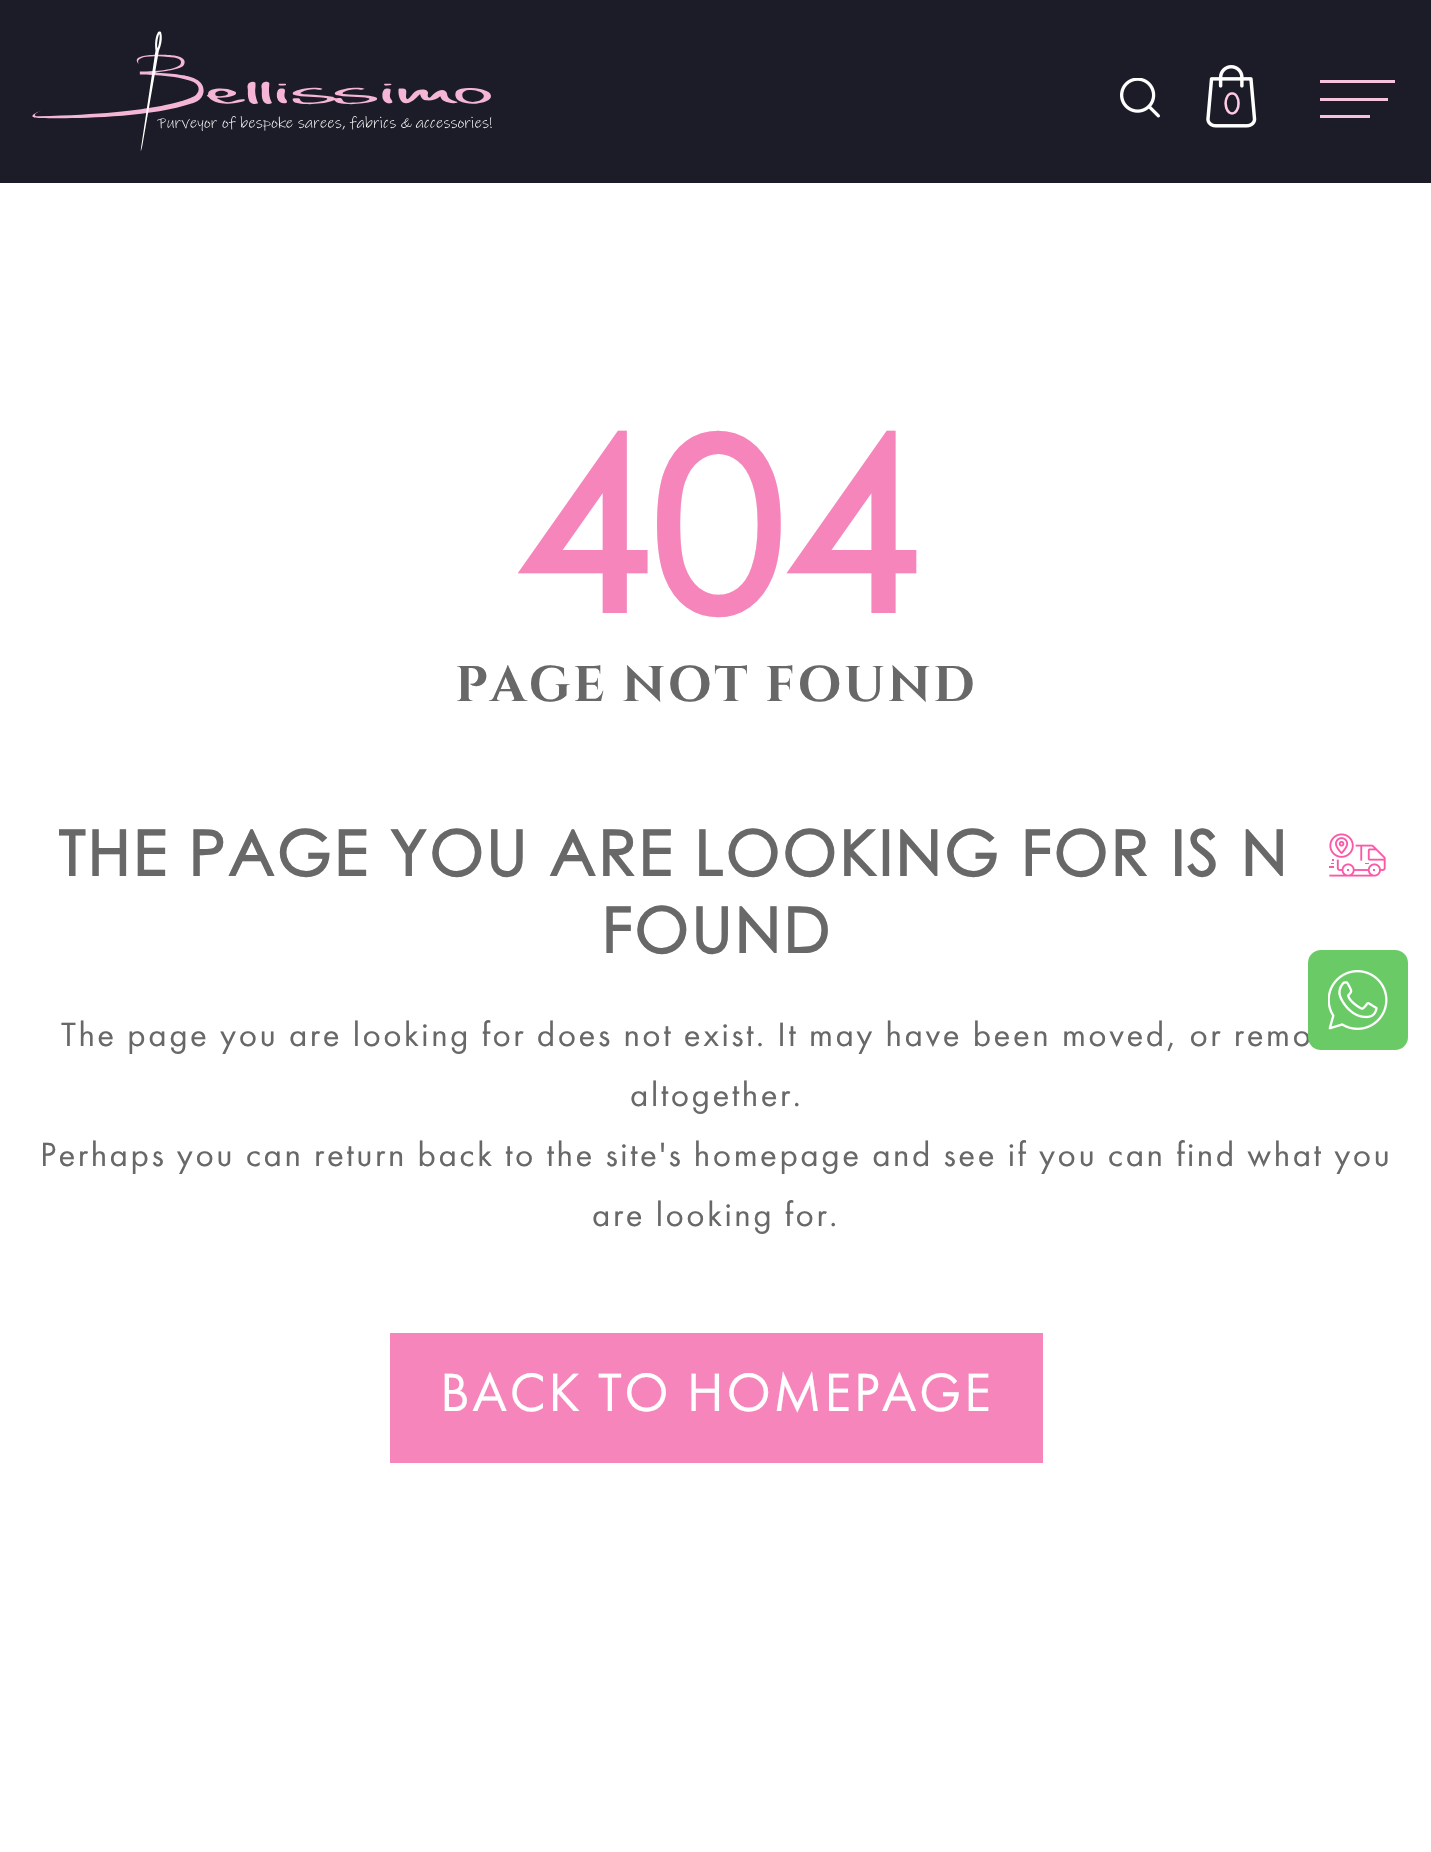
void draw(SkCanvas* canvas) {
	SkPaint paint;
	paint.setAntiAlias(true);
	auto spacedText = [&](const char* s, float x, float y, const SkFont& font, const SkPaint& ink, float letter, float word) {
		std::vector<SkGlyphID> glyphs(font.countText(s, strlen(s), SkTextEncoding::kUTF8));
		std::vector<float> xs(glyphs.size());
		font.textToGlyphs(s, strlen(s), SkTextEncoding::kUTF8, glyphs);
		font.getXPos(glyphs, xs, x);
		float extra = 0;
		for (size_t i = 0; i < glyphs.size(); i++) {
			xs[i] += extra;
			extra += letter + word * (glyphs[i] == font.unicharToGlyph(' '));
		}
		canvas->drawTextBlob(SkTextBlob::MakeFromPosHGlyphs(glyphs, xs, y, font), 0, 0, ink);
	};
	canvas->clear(0xffffffff);
	paint.setColor(0xff1c1c29);
	canvas->drawRect(SkRect::MakeXYWH(0, 0, 1431, 183), paint);
	canvas->drawImageRect(SkImages::DeferredFromEncodedData(SkData::MakeFromFileName("img1.png")), SkRect::MakeXYWH(32, 31, 460, 120), SkSamplingOptions());
	canvas->drawImageRect(SkImages::DeferredFromEncodedData(SkData::MakeFromFileName("img2.png")), SkRect::MakeXYWH(1120, 78, 40, 40), SkSamplingOptions());
	SkFont f1(fontMgr->matchFamilyStyle("Futura PT", SkFontStyle::Normal()), 32);
	f1.setSubpixel(true);
	paint.setColor(0xffffcbe4);
	spacedText("0", 1223, 114, f1, paint, 2.5, 0);
	canvas->drawImageRect(SkImages::DeferredFromEncodedData(SkData::MakeFromFileName("img3.png")), SkRect::MakeXYWH(1206, 65, 51, 63), SkSamplingOptions());
	paint.setColor(0xfff5c3db);
	canvas->drawRect(SkRect::MakeXYWH(1320, 80, 75, 3), paint);
	canvas->drawRect(SkRect::MakeXYWH(1320, 98, 68, 3), paint);
	canvas->drawRect(SkRect::MakeXYWH(1320, 115, 50, 3), paint);
	SkFont f2(fontMgr->matchFamilyStyle("Century Gothic", SkFontStyle::Bold()), 238);
	f2.setSubpixel(true);
	paint.setColor(0xfff685bb);
	spacedText("404", 515, 613, f2, paint, 2.5, 0);
	SkFont f3(fontMgr->matchFamilyStyle("Cinzel", SkFontStyle::Bold()), 50);
	f3.setSubpixel(true);
	paint.setColor(0xff696868);
	spacedText("PAGE NOT FOUND", 455, 701, f3, paint, 2.5, 0);
	SkFont f4(fontMgr->matchFamilyStyle("Century Gothic", SkFontStyle::Bold()), 62.5);
	f4.setSubpixel(true);
	spacedText("THE PAGE YOU ARE LOOKING FOR IS N", 58, 876, f4, paint, 2.5, 0);
	spacedText("FOUND", 601, 953, f4, paint, 2.5, 0);
	SkFont f5(fontMgr->matchFamilyStyle("Futura PT", SkFontStyle::Normal()), 35);
	f5.setSubpixel(true);
	spacedText("The page you are looking for does not exist. It may have been moved, or remo", 61, 1046, f5, paint, 2.5, 0);
	spacedText("altogether.", 630, 1106, f5, paint, 2.5, 0);
	spacedText("Perhaps you can return back to the site's homepage and see if you can find what you", 40, 1166, f5, paint, 2.5, 0);
	spacedText("are looking for.", 592, 1226, f5, paint, 2.5, 0);
	paint.setColor(0xfff685bb);
	canvas->drawRect(SkRect::MakeXYWH(390, 1333, 653, 130), paint);
	SkFont f6(fontMgr->matchFamilyStyle("Futura PT", SkFontStyle::Normal()), 56);
	f6.setSubpixel(true);
	paint.setColor(0xffffffff);
	spacedText("BACK TO HOMEPAGE", 440, 1411, f6, paint, 2.5, 0);
	canvas->drawImageRect(SkImages::DeferredFromEncodedData(SkData::MakeFromFileName("img4.png")), SkRect::MakeXYWH(1329, 833, 57, 44), SkSamplingOptions());
	paint.setColor(0xff6aca66);
	canvas->drawRoundRect(SkRect::MakeXYWH(1308, 950, 100, 100), 13, 13, paint);
	canvas->drawImageRect(SkImages::DeferredFromEncodedData(SkData::MakeFromFileName("img5.png")), SkRect::MakeXYWH(1328, 970, 60, 60), SkSamplingOptions());
}
